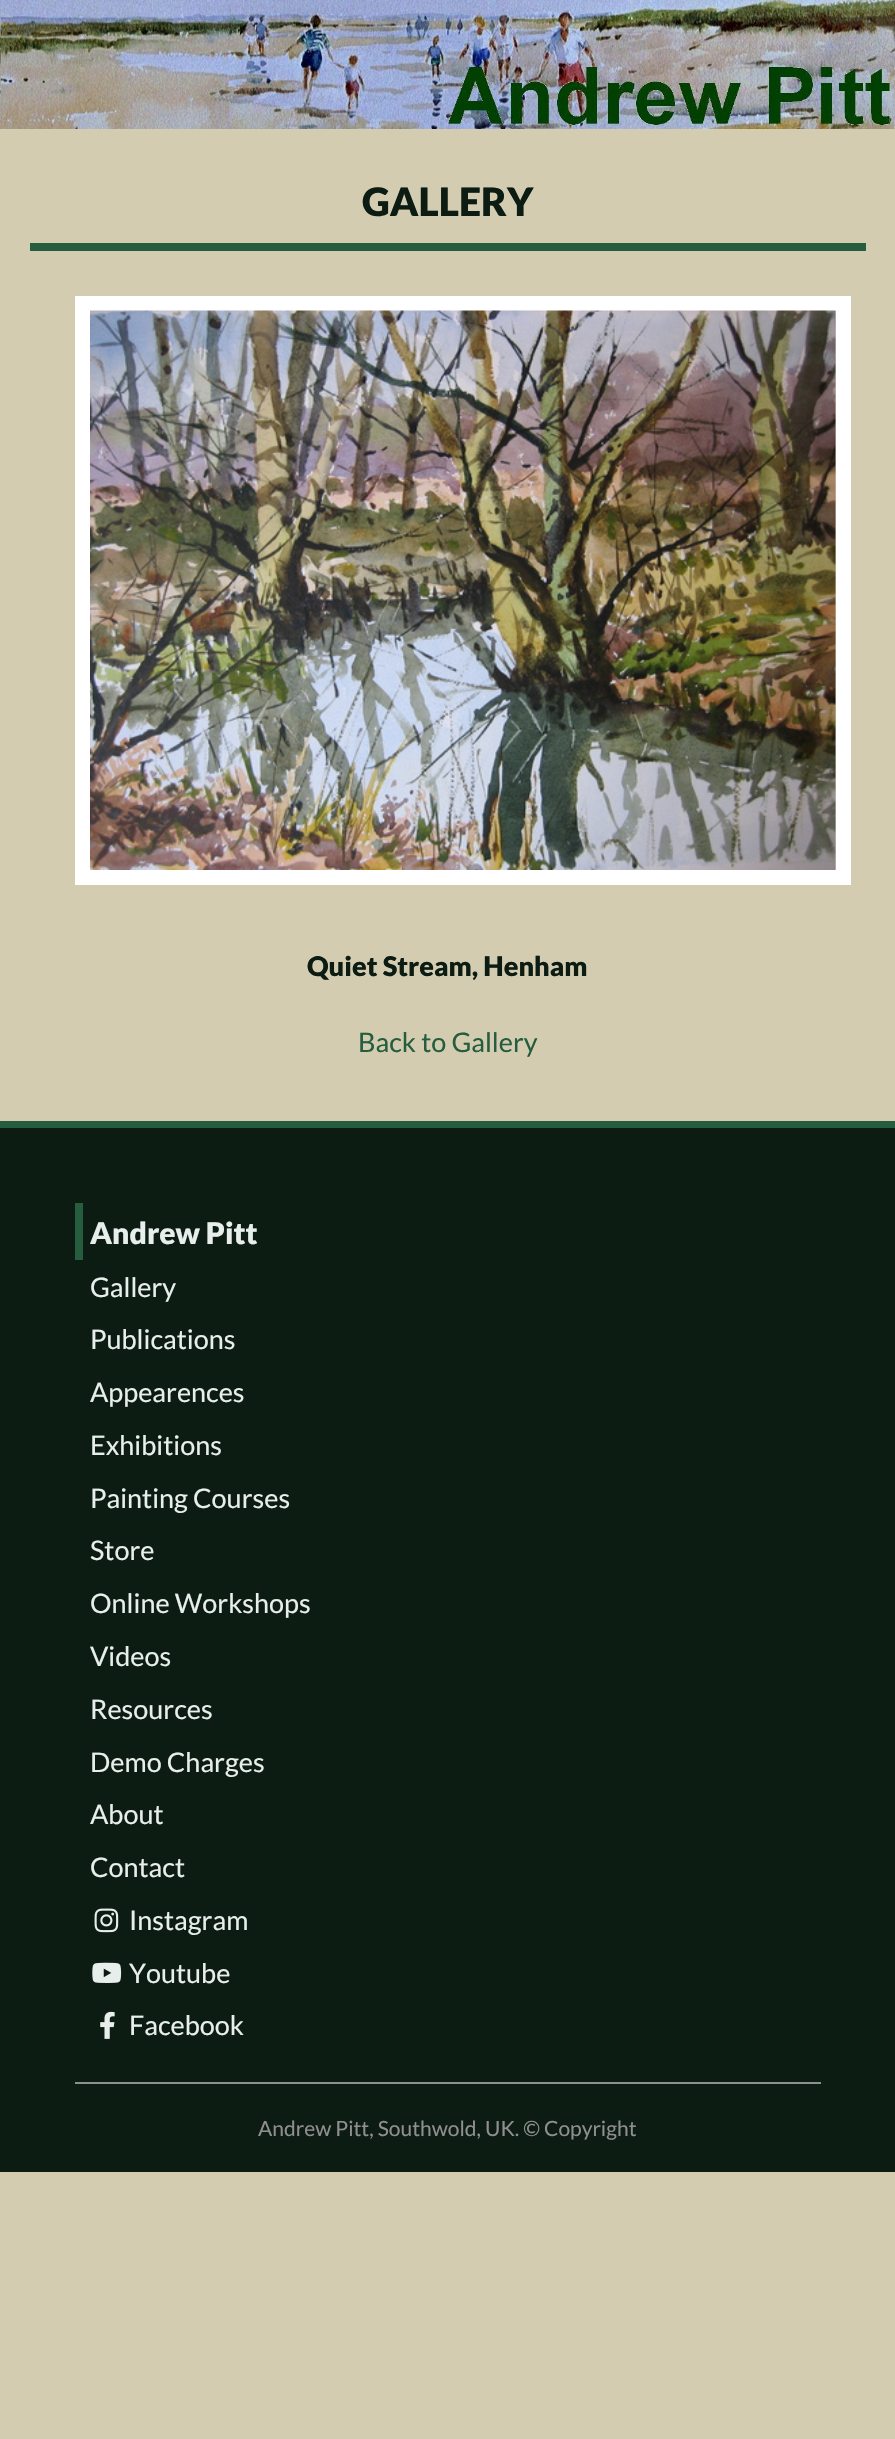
void draw(SkCanvas* canvas) {
	SkPaint paint;
	paint.setAntiAlias(true);
	canvas->clear(0xffd3ccb1);
	canvas->drawImageRect(SkImages::DeferredFromEncodedData(SkData::MakeFromFileName("img1.png")), SkRect::MakeXYWH(0, 0, 895, 129), SkSamplingOptions());
	paint.setColor(0xff255d3e);
	canvas->drawRect(SkRect::MakeXYWH(30, 243, 836, 8), paint);
	SkFont f1(fontMgr->matchFamilyStyle("Lato", SkFontStyle(900, SkFontStyle::kNormal_Width, SkFontStyle::kUpright_Slant)), 39);
	f1.setSubpixel(true);
	paint.setColor(0xff0c1c13);
	canvas->drawString("GALLERY", 362, 216, f1, paint);
	paint.setStroke(true);
	paint.setStrokeWidth(15);
	paint.setColor(0xffffffff);
	canvas->drawRect(SkRect::MakeXYWH(82.5, 303.5, 761, 574), paint);
	canvas->drawImageRect(SkImages::DeferredFromEncodedData(SkData::MakeFromFileName("img2.png")), SkRect::MakeXYWH(90, 310, 746, 560), SkSamplingOptions());
	SkFont f2(fontMgr->matchFamilyStyle("Lato", SkFontStyle(900, SkFontStyle::kNormal_Width, SkFontStyle::kUpright_Slant)), 27);
	f2.setSubpixel(true);
	paint.setStroke(false);
	paint.setColor(0xff0c1c13);
	canvas->drawString("Quiet Stream, Henham", 307, 976, f2, paint);
	SkFont f3(fontMgr->matchFamilyStyle("Lato", SkFontStyle::Normal()), 27);
	f3.setSubpixel(true);
	paint.setColor(0xff255d3e);
	canvas->drawString("Back to Gallery", 358, 1052, f3, paint);
	paint.setColor(0xff0c1c13);
	canvas->drawRect(SkRect::MakeXYWH(0, 1128, 895, 1044), paint);
	paint.setColor(0xff255d3e);
	canvas->drawRect(SkRect::MakeXYWH(0, 1121, 895, 7), paint);
	canvas->drawRect(SkRect::MakeXYWH(75, 1203, 8, 57), paint);
	SkFont f4(fontMgr->matchFamilyStyle("Lato", SkFontStyle(900, SkFontStyle::kNormal_Width, SkFontStyle::kUpright_Slant)), 30);
	f4.setSubpixel(true);
	paint.setColor(0xffe8eeeb);
	canvas->drawString("Andrew Pitt", 90, 1244, f4, paint);
	canvas->drawString("Gallery", 90, 1297, f3, paint);
	canvas->drawString("Publications", 90, 1349, f3, paint);
	canvas->drawString("Appearences", 90, 1402, f3, paint);
	canvas->drawString("Exhibitions", 90, 1455, f3, paint);
	canvas->drawString("Painting Courses", 90, 1508, f3, paint);
	canvas->drawString("Store", 90, 1560, f3, paint);
	canvas->drawString("Online Workshops", 90, 1613, f3, paint);
	canvas->drawString("Videos", 90, 1666, f3, paint);
	canvas->drawString("Resources", 90, 1719, f3, paint);
	canvas->drawString("Demo Charges", 90, 1772, f3, paint);
	canvas->drawString("About", 90, 1824, f3, paint);
	canvas->drawString("Contact", 90, 1877, f3, paint);
	canvas->drawImageRect(SkImages::DeferredFromEncodedData(SkData::MakeFromFileName("img3.png")), SkRect::MakeXYWH(94, 1908, 25, 25), SkSamplingOptions());
	canvas->drawString("Instagram", 129, 1930, f3, paint);
	canvas->drawImageRect(SkImages::DeferredFromEncodedData(SkData::MakeFromFileName("img4.png")), SkRect::MakeXYWH(92, 1962, 30, 21), SkSamplingOptions());
	canvas->drawString("Youtube", 129, 1983, f3, paint);
	canvas->drawImageRect(SkImages::DeferredFromEncodedData(SkData::MakeFromFileName("img5.png")), SkRect::MakeXYWH(100, 2011, 15, 28), SkSamplingOptions());
	canvas->drawString("Facebook", 129, 2035, f3, paint);
	paint.setColor(0xff908f8f);
	canvas->drawRect(SkRect::MakeXYWH(75, 2082, 746, 2), paint);
	SkFont f5(fontMgr->matchFamilyStyle("Lato", SkFontStyle::Normal()), 21);
	f5.setSubpixel(true);
	canvas->drawString("Andrew Pitt, Southwold, UK. © Copyright", 258, 2136, f5, paint);
}
